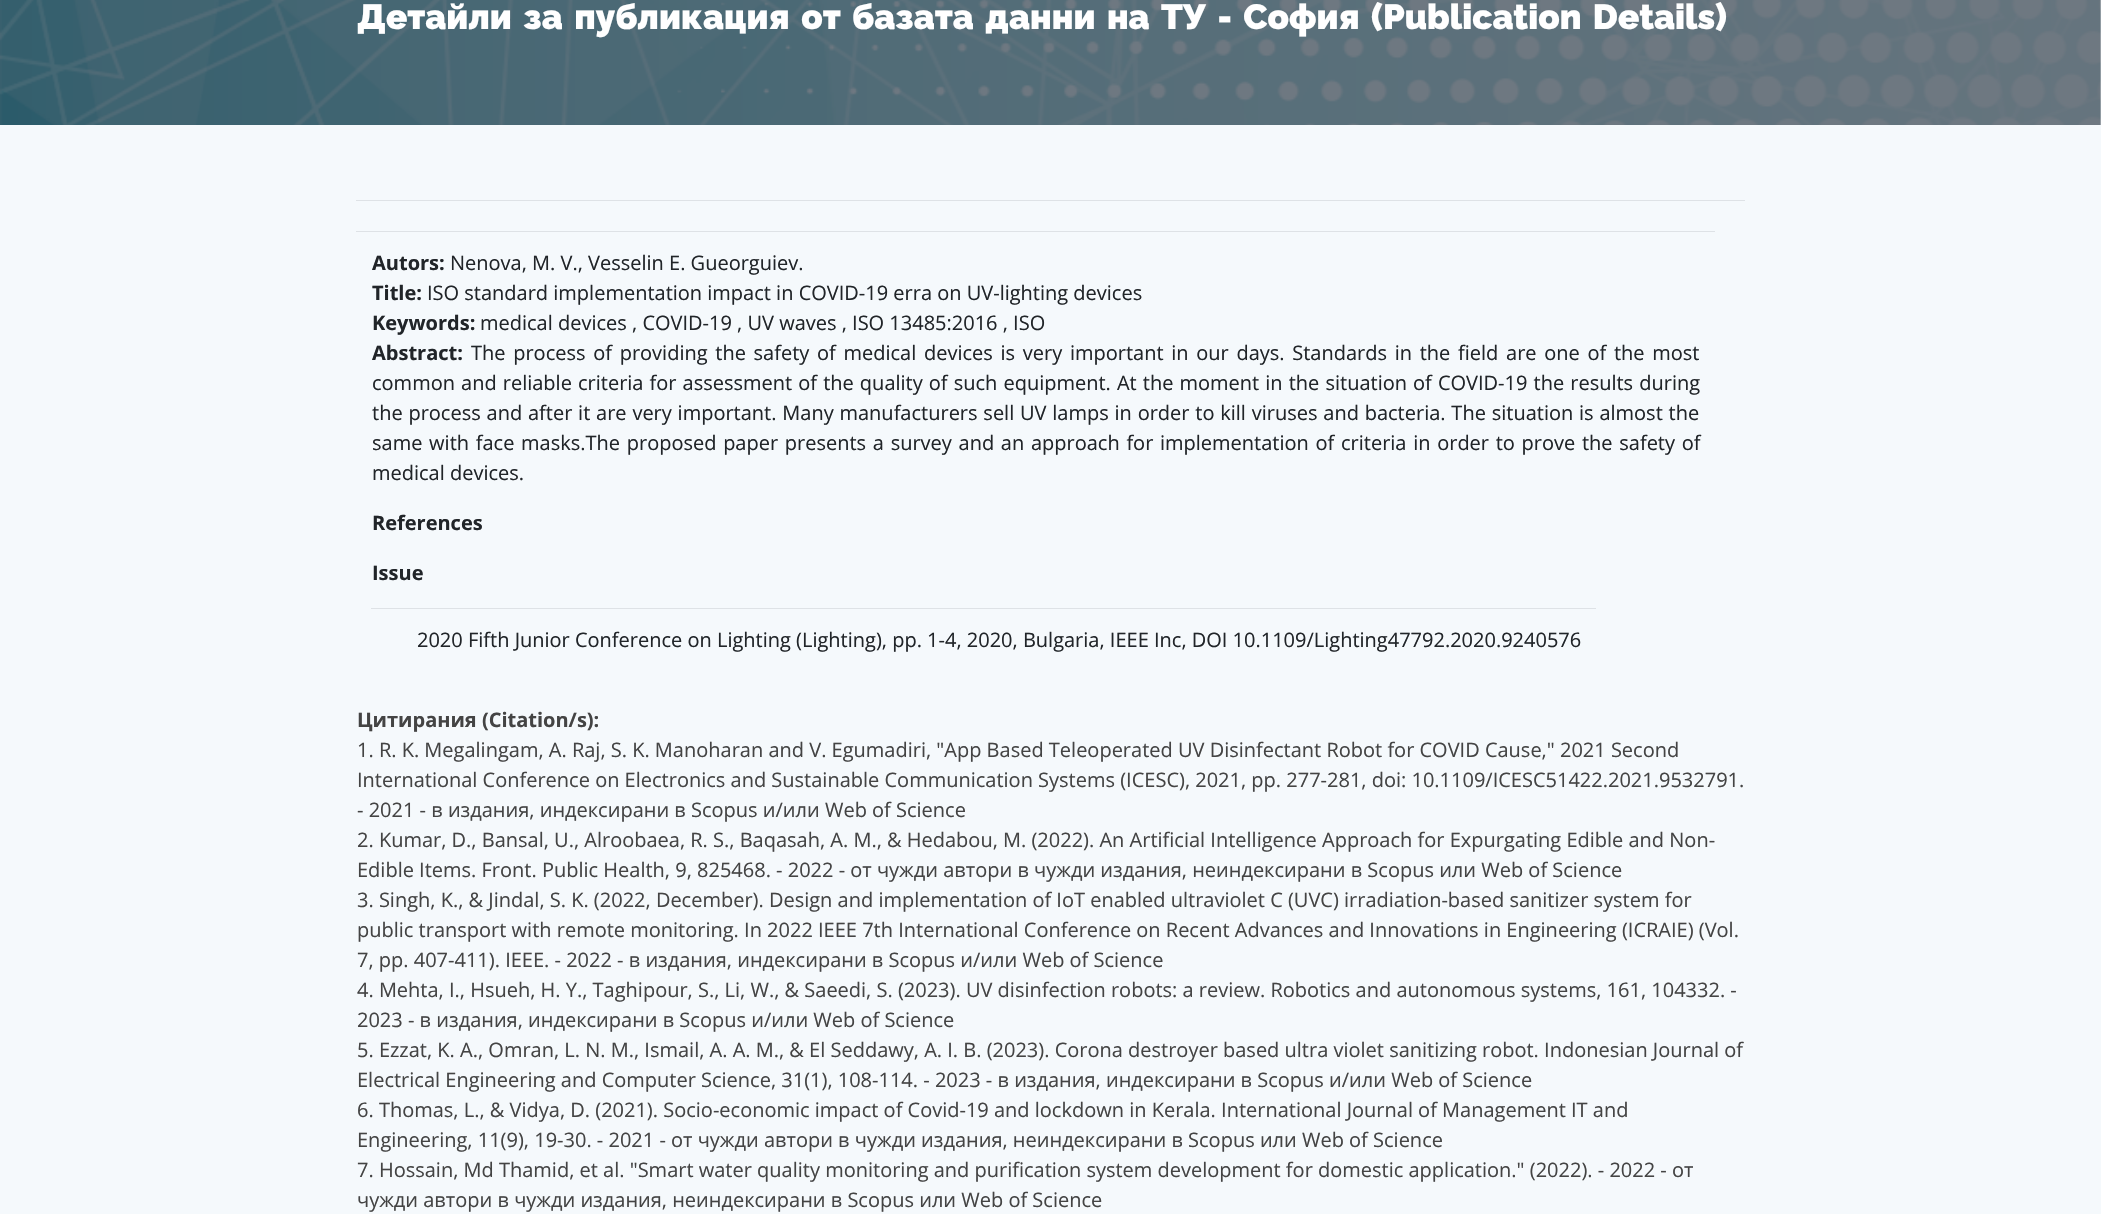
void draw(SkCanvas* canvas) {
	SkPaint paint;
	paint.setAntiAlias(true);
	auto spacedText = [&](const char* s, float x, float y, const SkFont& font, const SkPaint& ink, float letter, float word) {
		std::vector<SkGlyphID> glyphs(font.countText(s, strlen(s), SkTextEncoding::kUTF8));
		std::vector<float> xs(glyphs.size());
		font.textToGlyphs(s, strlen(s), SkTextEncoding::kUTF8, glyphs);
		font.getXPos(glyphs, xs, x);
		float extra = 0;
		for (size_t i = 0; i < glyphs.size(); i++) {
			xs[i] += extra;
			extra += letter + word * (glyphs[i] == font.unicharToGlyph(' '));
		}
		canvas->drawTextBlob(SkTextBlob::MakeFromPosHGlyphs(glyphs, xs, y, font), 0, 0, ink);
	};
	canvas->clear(0xffffffff);
	canvas->drawImageRect(SkImages::DeferredFromEncodedData(SkData::MakeFromFileName("img1.png")), SkRect::MakeXYWH(0, 0, 2101, 125), SkSamplingOptions());
	SkFont f1(fontMgr->matchFamilyStyle("Raleway", SkFontStyle(900, SkFontStyle::kNormal_Width, SkFontStyle::kUpright_Slant)), 35);
	f1.setSubpixel(true);
	paint.setColor(0xffffffff);
	spacedText("Детайли за публикация от базата данни на ТУ - София (Publication Details)", 357, 29, f1, paint, 0, 3.6);
	paint.setColor(0xfff5f9fc);
	canvas->drawRect(SkRect::MakeXYWH(0, 125, 2101, 1089), paint);
	paint.setColor(0xffdee2e6);
	canvas->drawRect(SkRect::MakeXYWH(356, 200, 1389, 1), paint);
	canvas->drawRect(SkRect::MakeXYWH(356, 231, 1359, 1), paint);
	SkFont f2(fontMgr->matchFamilyStyle("Open Sans", SkFontStyle::Bold()), 20);
	f2.setSubpixel(true);
	paint.setColor(0xff212529);
	canvas->drawString("Autors:", 372, 270, f2, paint);
	SkFont f3(fontMgr->matchFamilyStyle("Open Sans", SkFontStyle::Normal()), 20);
	f3.setSubpixel(true);
	canvas->drawString("Nenova, M. V., Vesselin E. Gueorguiev.", 450, 270, f3, paint);
	canvas->drawString("Title:", 372, 300, f2, paint);
	canvas->drawString("ISO standard implementation impact in COVID-19 erra on UV-lighting devices", 427, 300, f3, paint);
	canvas->drawString("Keywords:", 372, 330, f2, paint);
	canvas->drawString("medical devices , COVID-19 , UV waves , ISO 13485:2016 , ISO", 480, 330, f3, paint);
	canvas->drawString("Abstract:", 372, 360, f2, paint);
	spacedText("The process of providing the safety of medical devices is very important in our days. Standards in the field are one of the most", 471, 360, f3, paint, 0, 2.5);
	spacedText("common and reliable criteria for assessment of the quality of such equipment. At the moment in the situation of COVID-19 the results during", 372, 390, f3, paint, 0, 0.9);
	spacedText("the process and after it are very important. Many manufacturers sell UV lamps in order to kill viruses and bacteria. The situation is almost the", 372, 420, f3, paint, 0, 0.6);
	spacedText("same with face masks.The proposed paper presents a survey and an approach for implementation of criteria in order to prove the safety of", 372, 450, f3, paint, 0, 1.5);
	canvas->drawString("medical devices.", 372, 480, f3, paint);
	canvas->drawString("References", 372, 530, f2, paint);
	canvas->drawString("Issue", 372, 580, f2, paint);
	paint.setColor(0xffdee2e6);
	canvas->drawRect(SkRect::MakeXYWH(371, 608, 1225, 1), paint);
	paint.setColor(0xff212529);
	canvas->drawString("2020 Fifth Junior Conference on Lighting (Lighting), pp. 1-4, 2020, Bulgaria, IEEE Inc, DOI 10.1109/Lighting47792.2020.9240576", 417, 647, f3, paint);
	paint.setColor(0xff444444);
	canvas->drawString("Цитирания (Citation/s):", 357, 727, f2, paint);
	canvas->drawString("1. R. K. Megalingam, A. Raj, S. K. Manoharan and V. Egumadiri, \"App Based Teleoperated UV Disinfectant Robot for COVID Cause,\" 2021 Second", 357, 757, f3, paint);
	canvas->drawString("International Conference on Electronics and Sustainable Communication Systems (ICESC), 2021, pp. 277-281, doi: 10.1109/ICESC51422.2021.9532791.", 357, 787, f3, paint);
	canvas->drawString("- 2021 - в издания, индексирани в Scopus и/или Web of Science", 357, 817, f3, paint);
	canvas->drawString("2. Kumar, D., Bansal, U., Alroobaea, R. S., Baqasah, A. M., & Hedabou, M. (2022). An Artificial Intelligence Approach for Expurgating Edible and Non-", 357, 847, f3, paint);
	canvas->drawString("Edible Items. Front. Public Health, 9, 825468. - 2022 - от чужди автори в чужди издания, неиндексирани в Scopus или Web of Science", 357, 877, f3, paint);
	canvas->drawString("3. Singh, K., & Jindal, S. K. (2022, December). Design and implementation of IoT enabled ultraviolet C (UVC) irradiation-based sanitizer system for", 357, 907, f3, paint);
	canvas->drawString("public transport with remote monitoring. In 2022 IEEE 7th International Conference on Recent Advances and Innovations in Engineering (ICRAIE) (Vol.", 357, 937, f3, paint);
	canvas->drawString("7, pp. 407-411). IEEE. - 2022 - в издания, индексирани в Scopus и/или Web of Science", 357, 967, f3, paint);
	canvas->drawString("4. Mehta, I., Hsueh, H. Y., Taghipour, S., Li, W., & Saeedi, S. (2023). UV disinfection robots: a review. Robotics and autonomous systems, 161, 104332. -", 357, 997, f3, paint);
	canvas->drawString("2023 - в издания, индексирани в Scopus и/или Web of Science", 357, 1027, f3, paint);
	canvas->drawString("5. Ezzat, K. A., Omran, L. N. M., Ismail, A. A. M., & El Seddawy, A. I. B. (2023). Corona destroyer based ultra violet sanitizing robot. Indonesian Journal of", 357, 1057, f3, paint);
	canvas->drawString("Electrical Engineering and Computer Science, 31(1), 108-114. - 2023 - в издания, индексирани в Scopus и/или Web of Science", 357, 1087, f3, paint);
	canvas->drawString("6. Thomas, L., & Vidya, D. (2021). Socio-economic impact of Covid-19 and lockdown in Kerala. International Journal of Management IT and", 357, 1117, f3, paint);
	canvas->drawString("Engineering, 11(9), 19-30. - 2021 - от чужди автори в чужди издания, неиндексирани в Scopus или Web of Science", 357, 1147, f3, paint);
	canvas->drawString("7. Hossain, Md Thamid, et al. \"Smart water quality monitoring and purification system development for domestic application.\" (2022). - 2022 - от", 357, 1177, f3, paint);
	canvas->drawString("чужди автори в чужди издания, неиндексирани в Scopus или Web of Science", 357, 1207, f3, paint);
}
